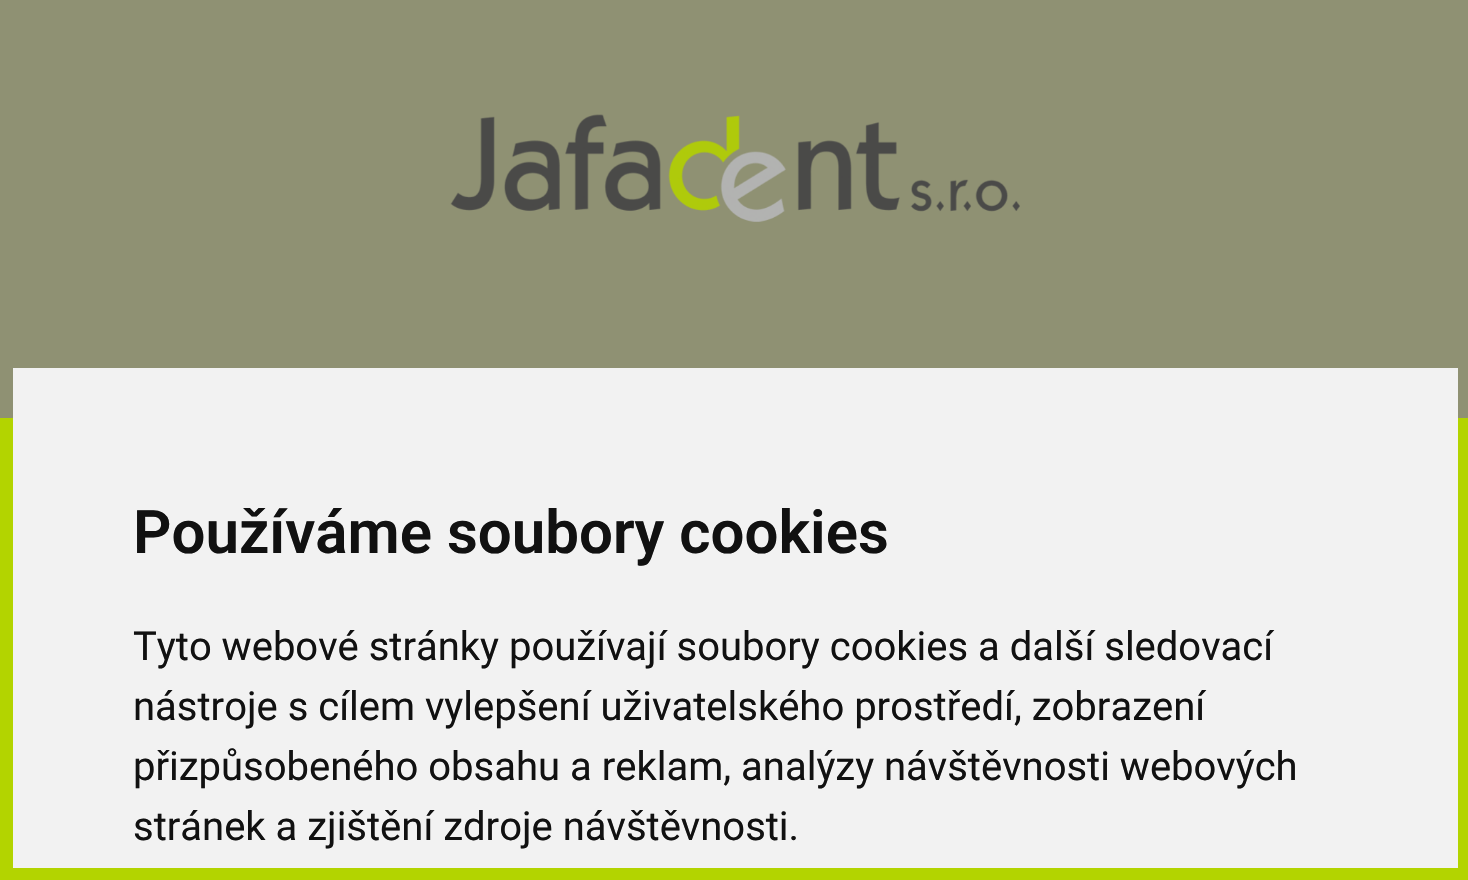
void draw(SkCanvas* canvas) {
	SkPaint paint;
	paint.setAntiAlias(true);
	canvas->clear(0xffb3d400);
	paint.setColor(0xff8f9173);
	canvas->drawRect(SkRect::MakeXYWH(0, 0, 1468, 418), paint);
	canvas->drawImageRect(SkImages::DeferredFromEncodedData(SkData::MakeFromFileName("img1.png")), SkRect::MakeXYWH(450, 114, 570, 108), SkSamplingOptions());
	paint.setColor(0xfff2f2f2);
	canvas->drawRect(SkRect::MakeXYWH(13, 368, 1445, 500), paint);
	SkFont f1(fontMgr->matchFamilyStyle("Roboto", SkFontStyle(600, SkFontStyle::kNormal_Width, SkFontStyle::kUpright_Slant)), 60);
	f1.setSubpixel(true);
	paint.setColor(0xff111111);
	canvas->drawString("Používáme soubory cookies", 133, 553, f1, paint);
	SkFont f2(fontMgr->matchFamilyStyle("Roboto", SkFontStyle::Normal()), 40);
	f2.setSubpixel(true);
	canvas->drawString("Tyto webové stránky používají soubory cookies a další sledovací", 133, 660, f2, paint);
	canvas->drawString("nástroje s cílem vylepšení uživatelského prostředí, zobrazení", 133, 720, f2, paint);
	canvas->drawString("přizpůsobeného obsahu a reklam, analýzy návštěvnosti webových", 133, 780, f2, paint);
	canvas->drawString("stránek a zjištění zdroje návštěvnosti.", 133, 840, f2, paint);
}
